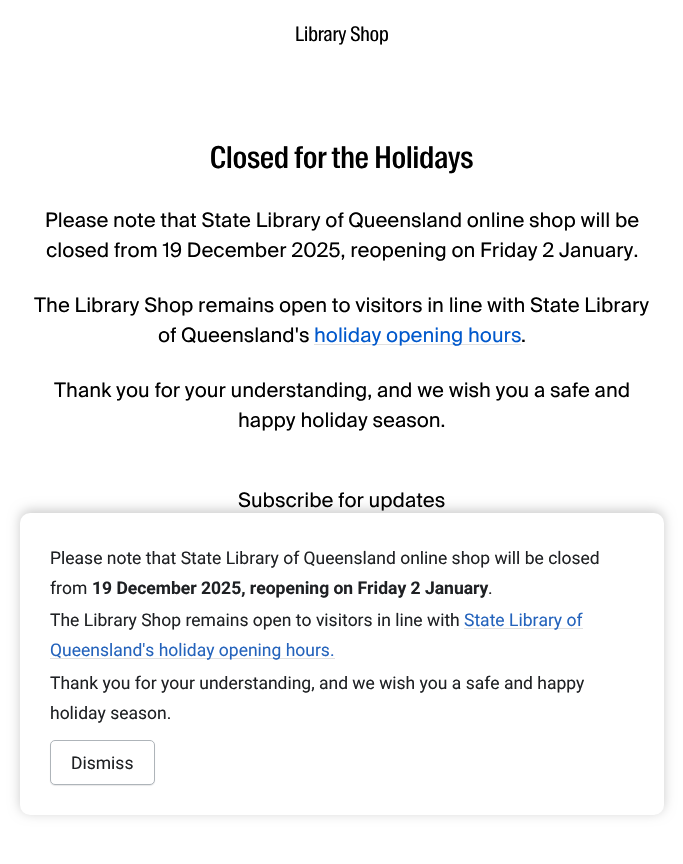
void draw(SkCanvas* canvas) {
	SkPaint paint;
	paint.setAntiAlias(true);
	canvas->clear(0xffffffff);
	SkFont f1(fontMgr->matchFamilyStyle("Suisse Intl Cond", SkFontStyle::Normal()), 20);
	f1.setSubpixel(true);
	paint.setColor(0xff000000);
	canvas->drawString("Library Shop", 295, 41, f1, paint);
	SkFont f2(fontMgr->matchFamilyStyle("Suisse Intl Cond", SkFontStyle(500, SkFontStyle::kNormal_Width, SkFontStyle::kUpright_Slant)), 30);
	f2.setSubpixel(true);
	canvas->drawString("Closed for the Holidays", 210, 168, f2, paint);
	SkFont f3(fontMgr->matchFamilyStyle("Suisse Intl", SkFontStyle::Normal()), 20);
	f3.setSubpixel(true);
	canvas->drawString("Please note that State Library of Queensland online shop will be", 45, 227, f3, paint);
	canvas->drawString("closed from 19 December 2025, reopening on Friday 2 January.", 46, 257, f3, paint);
	canvas->drawString("The Library Shop remains open to visitors in line with State Library", 34, 312, f3, paint);
	canvas->drawString("of Queensland's", 158, 342, f3, paint);
	paint.setColor(0xffe0e0e0);
	canvas->drawRect(SkRect::MakeXYWH(314, 344, 207, 1), paint);
	paint.setColor(0xff0058cc);
	canvas->drawString("holiday opening hours", 314, 342, f3, paint);
	paint.setColor(0xff000000);
	canvas->drawString(".", 521, 342, f3, paint);
	canvas->drawString("Thank you for your understanding, and we wish you a safe and", 54, 397, f3, paint);
	canvas->drawString("happy holiday season.", 238, 427, f3, paint);
	canvas->drawString("Subscribe for updates", 238, 507, f3, paint);
	paint.setColor(0x33000000);
	paint.setMaskFilter(SkMaskFilter::MakeBlur(kNormal_SkBlurStyle, 6));
	canvas->drawRoundRect(SkRect::MakeXYWH(20, 510, 644, 303), 10, 10, paint);
	paint.setMaskFilter(nullptr);
	paint.setColor(0xffffffff);
	canvas->drawRoundRect(SkRect::MakeXYWH(20, 513, 644, 302), 10, 10, paint);
	SkFont f4(fontMgr->matchFamilyStyle("Roboto", SkFontStyle::Normal()), 17.5);
	f4.setSubpixel(true);
	paint.setColor(0xff1f2124);
	canvas->drawString("Please note that State Library of Queensland online shop will be closed", 50, 564, f4, paint);
	canvas->drawString("from", 50, 594, f4, paint);
	SkFont f5(fontMgr->matchFamilyStyle("Roboto", SkFontStyle::Bold()), 17.5);
	f5.setSubpixel(true);
	canvas->drawString("19 December 2025, reopening on Friday 2 January", 92, 594, f5, paint);
	canvas->drawString(".", 488, 594, f4, paint);
	canvas->drawString("The Library Shop remains open to visitors in line with", 50, 626, f4, paint);
	paint.setColor(0xffe0e0e0);
	canvas->drawRect(SkRect::MakeXYWH(464, 628, 119, 1), paint);
	paint.setColor(0xff2463bc);
	canvas->drawString("State Library of", 464, 626, f4, paint);
	paint.setColor(0xffe0e0e0);
	canvas->drawRect(SkRect::MakeXYWH(50, 658, 285, 1), paint);
	paint.setColor(0xff2463bc);
	canvas->drawString("Queensland's holiday opening hours.", 50, 656, f4, paint);
	paint.setColor(0xff1f2124);
	canvas->drawString("Thank you for your understanding, and we wish you a safe and happy", 50, 689, f4, paint);
	canvas->drawString("holiday season.", 50, 719, f4, paint);
	paint.setColor(0x1a1f2124);
	paint.setMaskFilter(SkMaskFilter::MakeBlur(kNormal_SkBlurStyle, 0.5));
	canvas->drawRoundRect(SkRect::MakeXYWH(50, 741, 105, 45), 5, 5, paint);
	paint.setMaskFilter(nullptr);
	paint.setColor(0xffffffff);
	canvas->drawRoundRect(SkRect::MakeXYWH(50.5, 740.5, 104, 44), 4.5, 4.5, paint);
	paint.setStroke(true);
	paint.setStrokeWidth(1);
	paint.setColor(0xffaeb4b9);
	canvas->drawRoundRect(SkRect::MakeXYWH(50.5, 740.5, 104, 44), 4.5, 4.5, paint);
	paint.setStroke(false);
	paint.setColor(0xff1f2124);
	canvas->drawString("Dismiss", 71, 769, f4, paint);
}
